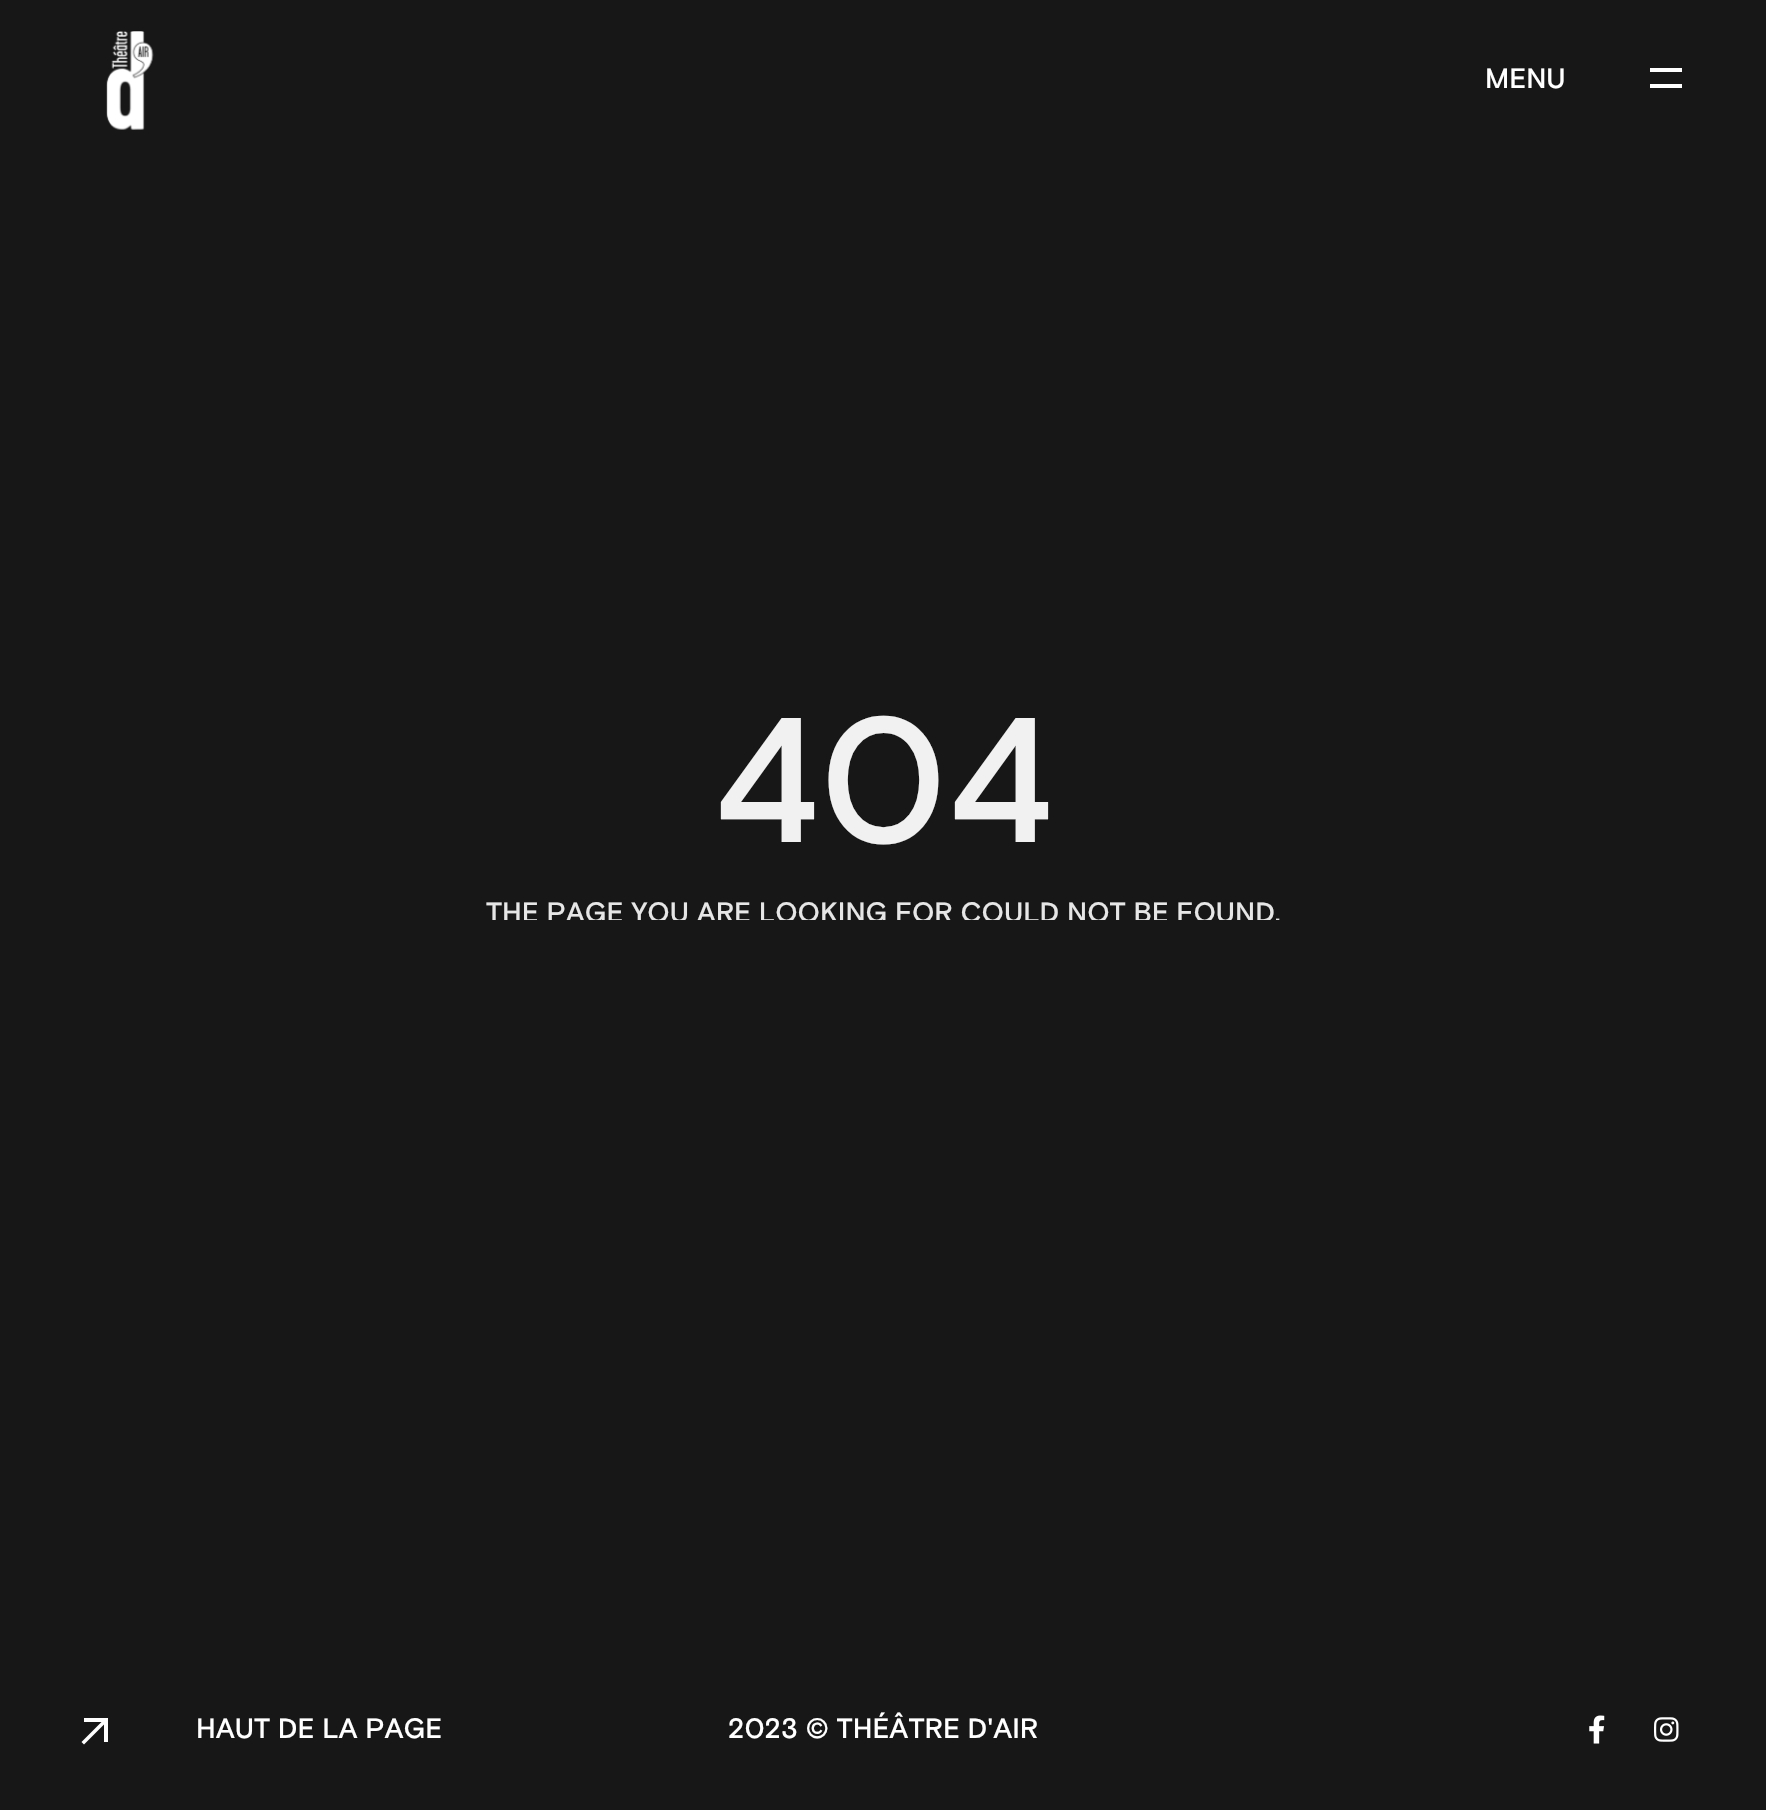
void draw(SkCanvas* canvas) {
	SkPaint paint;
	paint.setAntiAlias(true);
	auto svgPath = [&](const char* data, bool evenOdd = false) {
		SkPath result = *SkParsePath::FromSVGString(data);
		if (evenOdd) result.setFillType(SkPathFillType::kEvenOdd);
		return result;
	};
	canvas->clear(0xff171717);
	canvas->drawImageRect(SkImages::DeferredFromEncodedData(SkData::MakeFromFileName("img1.png")), SkRect::MakeXYWH(106, 31, 48, 99), SkSamplingOptions());
	SkFont f1(fontMgr->matchFamilyStyle("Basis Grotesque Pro", SkFontStyle(500, SkFontStyle::kNormal_Width, SkFontStyle::kUpright_Slant)), 28);
	f1.setSubpixel(true);
	paint.setColor(0xffffffff);
	canvas->drawString("MENU", 1485, 88, f1, paint);
	canvas->drawRect(SkRect::MakeXYWH(1650, 68, 32, 4), paint);
	canvas->drawRect(SkRect::MakeXYWH(1650, 84, 32, 4), paint);
	SkFont f2(fontMgr->matchFamilyStyle("Basis Grotesque Pro", SkFontStyle(500, SkFontStyle::kNormal_Width, SkFontStyle::kUpright_Slant)), 177);
	f2.setSubpixel(true);
	paint.setColor(0xfff1f1f1);
	canvas->drawString("404", 713, 842, f2, paint);
	canvas->save();
	canvas->clipRect(SkRect::MakeXYWH(486, 880, 794, 40));
	paint.setColor(0xffe6e6e6);
	canvas->drawString("THE PAGE YOU ARE LOOKING FOR COULD NOT BE FOUND.", 486, 922, f1, paint);
	canvas->restore();
	paint.setColor(0xffffffff);
	canvas->drawRect(SkRect::MakeXYWH(84, 1718, 24, 4), paint);
	canvas->drawRect(SkRect::MakeXYWH(104, 1718, 4, 24), paint);
	canvas->drawPath(svgPath("M81.5 1742L104 1719.5L106.5 1722L84 1744.5Z"), paint);
	canvas->drawString("HAUT DE LA PAGE", 196, 1738, f1, paint);
	canvas->drawString("2023 © THÉÂTRE D'AIR", 728, 1738, f1, paint);
	canvas->drawImageRect(SkImages::DeferredFromEncodedData(SkData::MakeFromFileName("img2.png")), SkRect::MakeXYWH(1589, 1715, 16, 29), SkSamplingOptions());
	canvas->drawImageRect(SkImages::DeferredFromEncodedData(SkData::MakeFromFileName("img3.png")), SkRect::MakeXYWH(1654, 1717, 25, 25), SkSamplingOptions());
}
